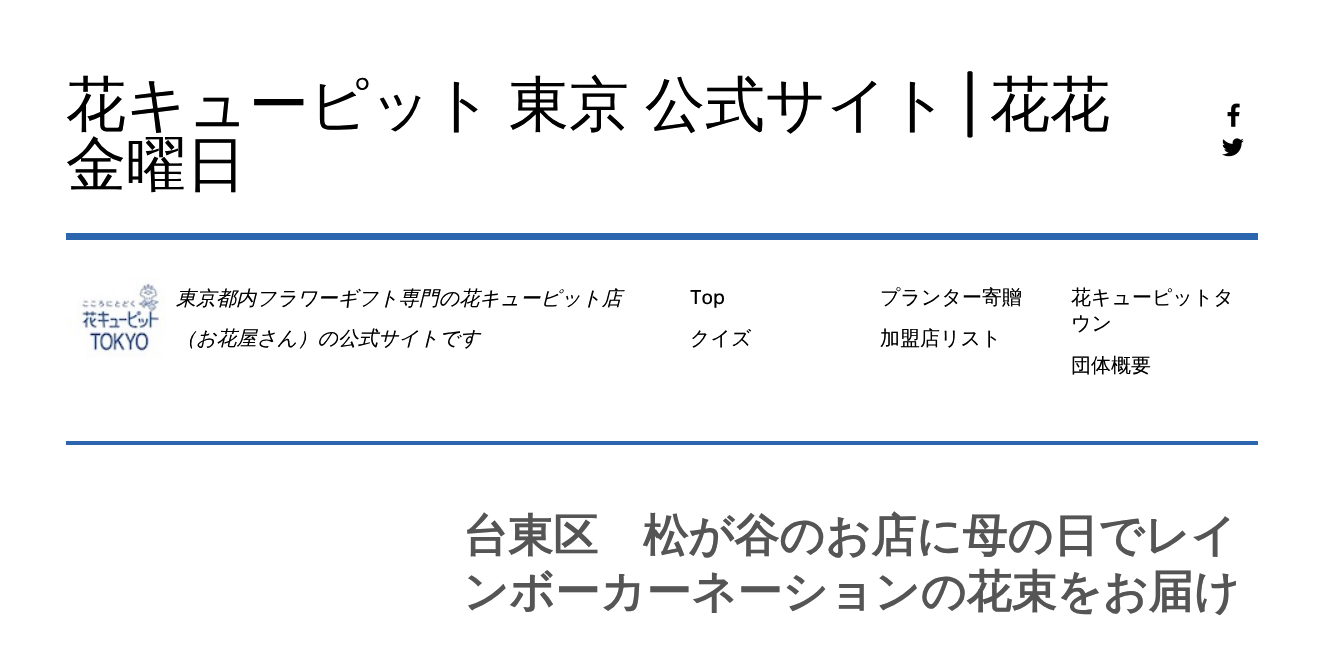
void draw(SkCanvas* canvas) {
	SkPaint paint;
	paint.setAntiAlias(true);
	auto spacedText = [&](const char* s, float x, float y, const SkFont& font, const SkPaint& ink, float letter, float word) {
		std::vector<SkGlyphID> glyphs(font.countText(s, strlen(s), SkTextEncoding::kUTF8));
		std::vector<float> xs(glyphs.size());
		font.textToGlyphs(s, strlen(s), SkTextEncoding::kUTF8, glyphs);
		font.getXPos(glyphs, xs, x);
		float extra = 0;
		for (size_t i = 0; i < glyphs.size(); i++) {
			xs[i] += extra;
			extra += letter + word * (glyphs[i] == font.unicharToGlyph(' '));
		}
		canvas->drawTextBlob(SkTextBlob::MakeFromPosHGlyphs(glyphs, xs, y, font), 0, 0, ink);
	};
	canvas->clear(0xffffffff);
	paint.setColor(0xff2c66ae);
	canvas->drawRect(SkRect::MakeXYWH(66, 233, 1192, 7), paint);
	SkFont f1(fontMgr->matchFamilyStyle("WenQuanYi Zen Hei", SkFontStyle(500, SkFontStyle::kNormal_Width, SkFontStyle::kUpright_Slant)), 60);
	f1.setSubpixel(true);
	paint.setColor(0xff000000);
	spacedText("花キューピット 東京 公式サイト", 66, 125, f1, paint, 0, -2);
	SkFont f2(fontMgr->matchFamilyStyle("Rubik", SkFontStyle::Normal()), 60);
	f2.setSubpixel(true);
	canvas->drawString("|", 963, 125, f2, paint);
	canvas->drawString("花花", 990, 125, f1, paint);
	canvas->drawString("金曜日", 66, 185, f1, paint);
	canvas->drawImageRect(SkImages::DeferredFromEncodedData(SkData::MakeFromFileName("img1.png")), SkRect::MakeXYWH(1227, 103, 13, 24), SkSamplingOptions());
	canvas->drawImageRect(SkImages::DeferredFromEncodedData(SkData::MakeFromFileName("img2.png")), SkRect::MakeXYWH(1222, 138, 22, 19), SkSamplingOptions());
	canvas->drawImageRect(SkImages::DeferredFromEncodedData(SkData::MakeFromFileName("img3.png")), SkRect::MakeXYWH(66, 277, 100, 81), SkSamplingOptions());
	SkFont f3(fontMgr->matchFamilyStyle("WenQuanYi Zen Hei", SkFontStyle(500, SkFontStyle::kNormal_Width, SkFontStyle::kItalic_Slant)), 20);
	f3.setSubpixel(true);
	canvas->drawString("東京都内フラワーギフト専門の花キューピット店", 176, 305, f3, paint);
	canvas->drawString("（お花屋さん）の公式サイトです", 176, 345, f3, paint);
	SkFont f4(fontMgr->matchFamilyStyle("Rubik", SkFontStyle::Normal()), 20);
	f4.setSubpixel(true);
	canvas->drawString("Top", 690, 304, f4, paint);
	SkFont f5(fontMgr->matchFamilyStyle("WenQuanYi Zen Hei", SkFontStyle(500, SkFontStyle::kNormal_Width, SkFontStyle::kUpright_Slant)), 20);
	f5.setSubpixel(true);
	canvas->drawString("クイズ", 690, 345, f5, paint);
	canvas->drawString("プランター寄贈", 880, 304, f5, paint);
	canvas->drawString("加盟店リスト", 880, 345, f5, paint);
	canvas->drawString("花キューピットタ", 1071, 304, f5, paint);
	canvas->drawString("ウン", 1071, 330, f5, paint);
	canvas->drawString("団体概要", 1071, 372, f5, paint);
	paint.setColor(0xff2c66ae);
	canvas->drawRect(SkRect::MakeXYWH(66, 441, 1192, 4), paint);
	SkFont f6(fontMgr->matchFamilyStyle("WenQuanYi Zen Hei", SkFontStyle::Bold()), 45);
	f6.setSubpixel(true);
	paint.setColor(0xff555555);
	canvas->drawString("台東区　松が谷のお店に母の日でレイ", 463, 551, f6, paint);
	canvas->drawString("ンボーカーネーションの花束をお届け", 463, 607, f6, paint);
}
